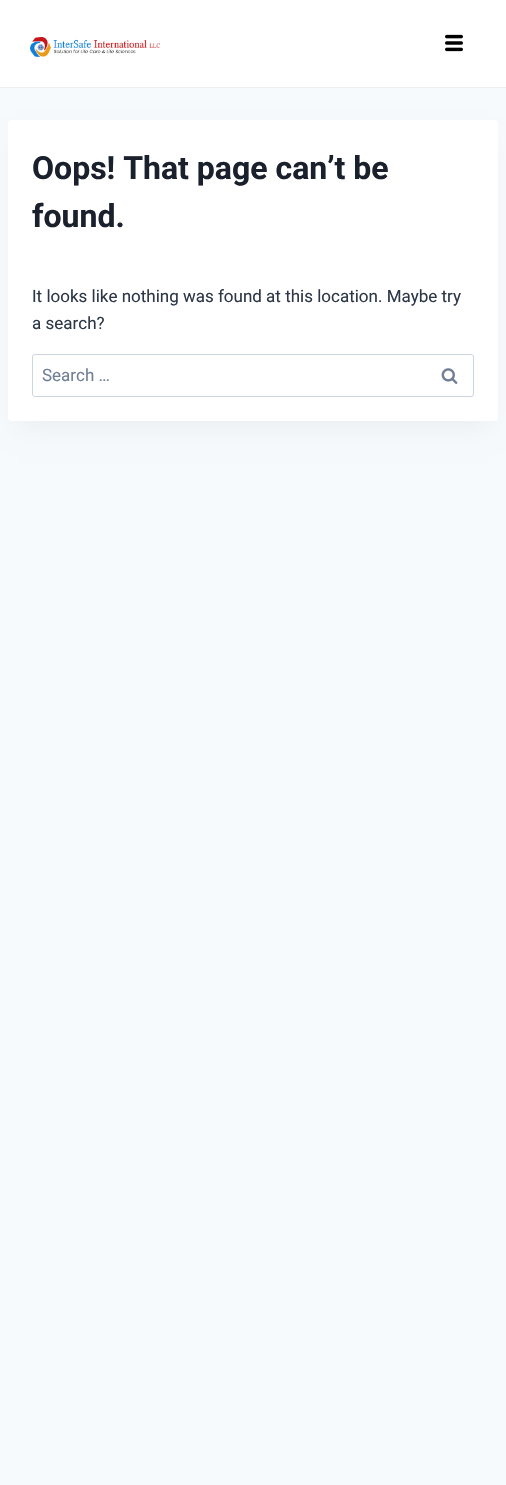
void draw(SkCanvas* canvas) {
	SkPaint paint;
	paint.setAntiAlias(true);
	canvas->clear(0xfff7fafc);
	paint.setColor(0xffffffff);
	canvas->drawRect(SkRect::MakeXYWH(0, 0, 506, 87), paint);
	paint.setColor(0xffeeeeee);
	canvas->drawRect(SkRect::MakeXYWH(0, 87, 506, 1), paint);
	canvas->drawImageRect(SkImages::DeferredFromEncodedData(SkData::MakeFromFileName("img1.png")), SkRect::MakeXYWH(30, 37, 130, 20), SkSamplingOptions());
	canvas->drawImageRect(SkImages::DeferredFromEncodedData(SkData::MakeFromFileName("img2.png")), SkRect::MakeXYWH(445, 34, 18, 18), SkSamplingOptions());
	paint.setColor(0x0d000000);
	paint.setMaskFilter(SkMaskFilter::MakeBlur(kNormal_SkBlurStyle, 12.5));
	canvas->drawRect(SkRect::MakeXYWH(18, 145, 470, 281), paint);
	paint.setMaskFilter(nullptr);
	paint.setColor(0xffffffff);
	canvas->drawRoundRect(SkRect::MakeXYWH(8, 120, 490, 301), 4, 4, paint);
	SkFont f1(fontMgr->matchFamilyStyle("Roboto", SkFontStyle::Bold()), 32);
	f1.setSubpixel(true);
	paint.setColor(0xff1a202c);
	canvas->drawString("Oops! That page can’t be", 32, 179, f1, paint);
	canvas->drawString("found.", 32, 227, f1, paint);
	SkFont f2(fontMgr->matchFamilyStyle("Roboto", SkFontStyle::Normal()), 17);
	f2.setSubpixel(true);
	paint.setColor(0xff2d3748);
	canvas->drawString("It looks like nothing was found at this location. Maybe try", 32, 302, f2, paint);
	canvas->drawString("a search?", 32, 329, f2, paint);
	paint.setStroke(true);
	paint.setStrokeWidth(1);
	paint.setColor(0xffcbd5e0);
	canvas->drawRoundRect(SkRect::MakeXYWH(32.5, 354.5, 441, 42), 2.5, 2.5, paint);
	paint.setStroke(false);
	paint.setColor(0xff718096);
	canvas->drawString("Search …", 42, 381, f2, paint);
	canvas->drawImageRect(SkImages::DeferredFromEncodedData(SkData::MakeFromFileName("img3.png")), SkRect::MakeXYWH(441, 368, 17, 16), SkSamplingOptions());
}
